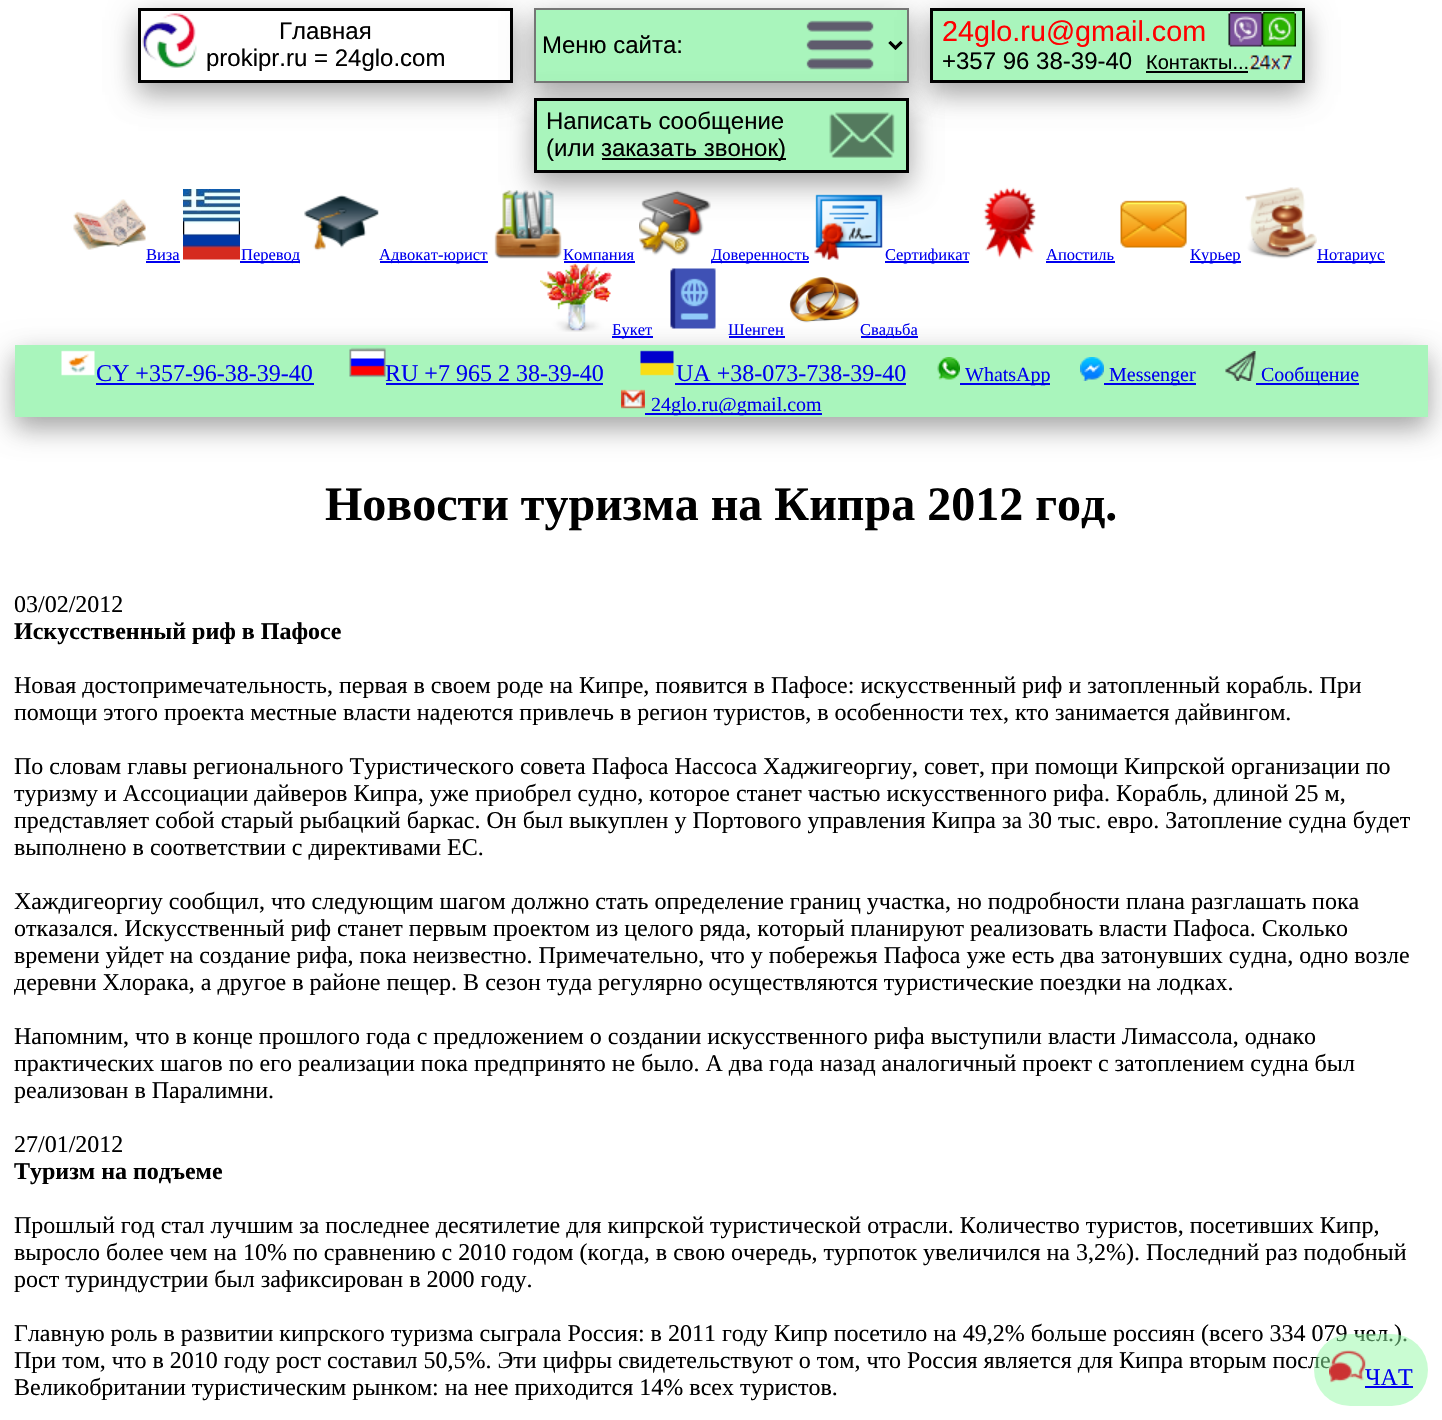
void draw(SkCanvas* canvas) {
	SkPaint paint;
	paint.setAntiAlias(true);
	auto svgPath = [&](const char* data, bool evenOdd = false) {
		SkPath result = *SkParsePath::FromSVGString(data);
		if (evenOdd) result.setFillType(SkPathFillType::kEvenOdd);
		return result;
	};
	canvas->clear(0xffffffff);
	paint.setColor(0x30000000);
	paint.setMaskFilter(SkMaskFilter::MakeBlur(kNormal_SkBlurStyle, 15));
	canvas->drawRect(SkRect::MakeXYWH(138, 17, 375, 75), paint);
	paint.setMaskFilter(nullptr);
	paint.setColor(0x33000000);
	paint.setMaskFilter(SkMaskFilter::MakeBlur(kNormal_SkBlurStyle, 12));
	canvas->drawRect(SkRect::MakeXYWH(138, 20, 375, 75), paint);
	paint.setMaskFilter(nullptr);
	paint.setColor(0xffffffff);
	canvas->drawRect(SkRect::MakeXYWH(141, 11, 369, 69), paint);
	canvas->drawImageRect(SkImages::DeferredFromEncodedData(SkData::MakeFromFileName("img1.png")), SkRect::MakeXYWH(142, 13, 55, 55), SkSamplingOptions());
	paint.setStroke(true);
	paint.setStrokeWidth(3);
	paint.setColor(0xff000000);
	canvas->drawRect(SkRect::MakeXYWH(139.5, 9.5, 372, 72), paint);
	SkFont f1(fontMgr->matchFamilyStyle("Liberation Sans", SkFontStyle::Normal()), 24);
	f1.setSubpixel(true);
	paint.setStroke(false);
	canvas->drawString("Главная", 279, 39, f1, paint);
	canvas->drawString("prokipr.ru = 24glo.com", 206, 66, f1, paint);
	paint.setColor(0x30000000);
	paint.setMaskFilter(SkMaskFilter::MakeBlur(kNormal_SkBlurStyle, 15));
	canvas->drawRect(SkRect::MakeXYWH(534, 17, 375, 75), paint);
	paint.setMaskFilter(nullptr);
	paint.setColor(0x33000000);
	paint.setMaskFilter(SkMaskFilter::MakeBlur(kNormal_SkBlurStyle, 12));
	canvas->drawRect(SkRect::MakeXYWH(534, 20, 375, 75), paint);
	paint.setMaskFilter(nullptr);
	paint.setColor(0xffa9f5bc);
	canvas->drawRect(SkRect::MakeXYWH(536, 10, 371, 71), paint);
	canvas->drawImageRect(SkImages::DeferredFromEncodedData(SkData::MakeFromFileName("img2.png")), SkRect::MakeXYWH(806, 20, 97, 50), SkSamplingOptions());
	paint.setStroke(true);
	paint.setStrokeWidth(2);
	paint.setColor(0xff767676);
	canvas->drawRect(SkRect::MakeXYWH(535, 9, 373, 73), paint);
	paint.setStrokeWidth(3);
	paint.setColor(0xff000000);
	canvas->drawPath(svgPath("M889.5 42L895.5 48L901.5 42"), paint);
	paint.setStroke(false);
	canvas->drawString("Меню сайта:", 542, 53, f1, paint);
	paint.setColor(0x30000000);
	paint.setMaskFilter(SkMaskFilter::MakeBlur(kNormal_SkBlurStyle, 15));
	canvas->drawRect(SkRect::MakeXYWH(930, 17, 375, 75), paint);
	paint.setMaskFilter(nullptr);
	paint.setColor(0x33000000);
	paint.setMaskFilter(SkMaskFilter::MakeBlur(kNormal_SkBlurStyle, 12));
	canvas->drawRect(SkRect::MakeXYWH(930, 20, 375, 75), paint);
	paint.setMaskFilter(nullptr);
	paint.setColor(0xffa9f5bc);
	canvas->drawRect(SkRect::MakeXYWH(933, 11, 369, 69), paint);
	canvas->drawImageRect(SkImages::DeferredFromEncodedData(SkData::MakeFromFileName("img3.png")), SkRect::MakeXYWH(1228, 12, 68, 58), SkSamplingOptions());
	paint.setStroke(true);
	paint.setColor(0xff000000);
	canvas->drawRect(SkRect::MakeXYWH(931.5, 9.5, 372, 72), paint);
	SkFont f2(fontMgr->matchFamilyStyle("Liberation Sans", SkFontStyle::Normal()), 28.75);
	f2.setSubpixel(true);
	paint.setStroke(false);
	paint.setColor(0xffff0000);
	canvas->drawString("24glo.ru@gmail.com", 942, 41, f2, paint);
	paint.setColor(0xff000000);
	canvas->drawString("+357 96 38-39-40", 942, 69, f1, paint);
	SkFont f3(fontMgr->matchFamilyStyle("Liberation Sans", SkFontStyle::Normal()), 20);
	f3.setSubpixel(true);
	canvas->drawString("Контакты...", 1146, 69, f3, paint);
	canvas->drawRect(SkRect::MakeXYWH(1146, 71, 102, 2), paint);
	paint.setColor(0x30000000);
	paint.setMaskFilter(SkMaskFilter::MakeBlur(kNormal_SkBlurStyle, 15));
	canvas->drawRect(SkRect::MakeXYWH(534, 107, 375, 75), paint);
	paint.setMaskFilter(nullptr);
	paint.setColor(0x33000000);
	paint.setMaskFilter(SkMaskFilter::MakeBlur(kNormal_SkBlurStyle, 12));
	canvas->drawRect(SkRect::MakeXYWH(534, 110, 375, 75), paint);
	paint.setMaskFilter(nullptr);
	paint.setColor(0xffa9f5bc);
	canvas->drawRect(SkRect::MakeXYWH(537, 101, 369, 69), paint);
	canvas->drawImageRect(SkImages::DeferredFromEncodedData(SkData::MakeFromFileName("img4.png")), SkRect::MakeXYWH(829, 112, 66, 46), SkSamplingOptions());
	paint.setStroke(true);
	paint.setColor(0xff000000);
	canvas->drawRect(SkRect::MakeXYWH(535.5, 99.5, 372, 72), paint);
	paint.setStroke(false);
	canvas->drawString("Написать сообщение", 546, 129, f1, paint);
	canvas->drawString("(или", 546, 156, f1, paint);
	canvas->drawRect(SkRect::MakeXYWH(602, 158, 184, 2), paint);
	canvas->drawString("заказать звонок)", 601, 156, f1, paint);
	canvas->drawImageRect(SkImages::DeferredFromEncodedData(SkData::MakeFromFileName("img5.png")), SkRect::MakeXYWH(73, 199, 73, 51), SkSamplingOptions());
	canvas->drawImageRect(SkImages::DeferredFromEncodedData(SkData::MakeFromFileName("img6.png")), SkRect::MakeXYWH(183, 189, 57, 71), SkSamplingOptions());
	canvas->drawImageRect(SkImages::DeferredFromEncodedData(SkData::MakeFromFileName("img7.png")), SkRect::MakeXYWH(304, 195, 75, 56), SkSamplingOptions());
	canvas->drawImageRect(SkImages::DeferredFromEncodedData(SkData::MakeFromFileName("img8.png")), SkRect::MakeXYWH(494, 190, 68, 69), SkSamplingOptions());
	canvas->drawImageRect(SkImages::DeferredFromEncodedData(SkData::MakeFromFileName("img9.png")), SkRect::MakeXYWH(639, 190, 72, 66), SkSamplingOptions());
	canvas->drawImageRect(SkImages::DeferredFromEncodedData(SkData::MakeFromFileName("img10.png")), SkRect::MakeXYWH(814, 194, 69, 66), SkSamplingOptions());
	canvas->drawImageRect(SkImages::DeferredFromEncodedData(SkData::MakeFromFileName("img11.png")), SkRect::MakeXYWH(983, 187, 53, 73), SkSamplingOptions());
	canvas->drawImageRect(SkImages::DeferredFromEncodedData(SkData::MakeFromFileName("img12.png")), SkRect::MakeXYWH(1120, 200, 67, 48), SkSamplingOptions());
	canvas->drawImageRect(SkImages::DeferredFromEncodedData(SkData::MakeFromFileName("img13.png")), SkRect::MakeXYWH(1245, 187, 72, 72), SkSamplingOptions());
	SkFont f4(fontMgr->matchFamilyStyle("Liberation Serif", SkFontStyle::Normal()), 16.5);
	f4.setSubpixel(true);
	paint.setColor(0xff0000ee);
	canvas->drawString("Виза", 146, 260, f4, paint);
	canvas->drawRect(SkRect::MakeXYWH(146, 261, 34, 2), paint);
	canvas->drawRect(SkRect::MakeXYWH(240, 261, 60, 2), paint);
	canvas->drawString("Перевод", 241, 260, f4, paint);
	canvas->drawRect(SkRect::MakeXYWH(380, 261, 108, 2), paint);
	canvas->drawString("Адвокат-юрист", 379, 260, f4, paint);
	canvas->drawString("Компания", 563, 260, f4, paint);
	canvas->drawRect(SkRect::MakeXYWH(564, 261, 71, 2), paint);
	canvas->drawRect(SkRect::MakeXYWH(711, 261, 98, 2), paint);
	canvas->drawString("Доверенность", 711, 260, f4, paint);
	canvas->drawRect(SkRect::MakeXYWH(885, 261, 84, 2), paint);
	canvas->drawString("Сертификат", 885, 260, f4, paint);
	canvas->drawString("Апостиль", 1046, 260, f4, paint);
	canvas->drawRect(SkRect::MakeXYWH(1046, 261, 69, 2), paint);
	canvas->drawRect(SkRect::MakeXYWH(1190, 261, 51, 2), paint);
	canvas->drawString("Курьер", 1190, 260, f4, paint);
	canvas->drawRect(SkRect::MakeXYWH(1317, 261, 68, 2), paint);
	canvas->drawString("Нотариус", 1317, 260, f4, paint);
	paint.setColor(0x30000000);
	paint.setMaskFilter(SkMaskFilter::MakeBlur(kNormal_SkBlurStyle, 15));
	canvas->drawRect(SkRect::MakeXYWH(15, 354, 1413, 72), paint);
	paint.setMaskFilter(nullptr);
	paint.setColor(0x33000000);
	paint.setMaskFilter(SkMaskFilter::MakeBlur(kNormal_SkBlurStyle, 12));
	canvas->drawRect(SkRect::MakeXYWH(15, 357, 1413, 72), paint);
	paint.setMaskFilter(nullptr);
	canvas->drawImageRect(SkImages::DeferredFromEncodedData(SkData::MakeFromFileName("img14.png")), SkRect::MakeXYWH(540, 262, 72, 70), SkSamplingOptions());
	canvas->drawImageRect(SkImages::DeferredFromEncodedData(SkData::MakeFromFileName("img15.png")), SkRect::MakeXYWH(670, 268, 46, 61), SkSamplingOptions());
	canvas->drawImageRect(SkImages::DeferredFromEncodedData(SkData::MakeFromFileName("img16.png")), SkRect::MakeXYWH(789, 277, 71, 46), SkSamplingOptions());
	paint.setColor(0xff0000ee);
	canvas->drawRect(SkRect::MakeXYWH(612, 336, 41, 2), paint);
	canvas->drawString("Букет", 612, 335, f4, paint);
	canvas->drawString("Шенген", 728, 335, f4, paint);
	canvas->drawRect(SkRect::MakeXYWH(729, 336, 56, 2), paint);
	canvas->drawRect(SkRect::MakeXYWH(861, 336, 57, 2), paint);
	canvas->drawString("Свадьба", 860, 335, f4, paint);
	paint.setColor(0xffa9f5bc);
	canvas->drawRect(SkRect::MakeXYWH(15, 345, 1413, 72), paint);
	canvas->drawImageRect(SkImages::DeferredFromEncodedData(SkData::MakeFromFileName("img17.png")), SkRect::MakeXYWH(61, 350, 34, 26), SkSamplingOptions());
	SkFont f5(fontMgr->matchFamilyStyle("Liberation Serif", SkFontStyle::Normal()), 24);
	f5.setSubpixel(true);
	paint.setColor(0xff0000ee);
	canvas->drawString("CY +357-96-38-39-40", 96, 381, f5, paint);
	canvas->drawRect(SkRect::MakeXYWH(96, 383, 218, 2), paint);
	canvas->drawImageRect(SkImages::DeferredFromEncodedData(SkData::MakeFromFileName("img18.png")), SkRect::MakeXYWH(349, 347, 37, 31), SkSamplingOptions());
	canvas->drawString("RU +7 965 2 38-39-40", 385, 381, f5, paint);
	canvas->drawRect(SkRect::MakeXYWH(386, 383, 217, 2), paint);
	canvas->drawImageRect(SkImages::DeferredFromEncodedData(SkData::MakeFromFileName("img19.png")), SkRect::MakeXYWH(640, 350, 34, 26), SkSamplingOptions());
	canvas->drawString("UA +38-073-738-39-40", 676, 381, f5, paint);
	canvas->drawRect(SkRect::MakeXYWH(675, 383, 231, 2), paint);
	canvas->drawImageRect(SkImages::DeferredFromEncodedData(SkData::MakeFromFileName("img20.png")), SkRect::MakeXYWH(937, 357, 23, 23), SkSamplingOptions());
	canvas->drawRect(SkRect::MakeXYWH(960, 383, 90, 2), paint);
	SkFont f6(fontMgr->matchFamilyStyle("Liberation Serif", SkFontStyle::Normal()), 20);
	f6.setSubpixel(true);
	canvas->drawString("WhatsApp", 965, 381, f6, paint);
	canvas->drawImageRect(SkImages::DeferredFromEncodedData(SkData::MakeFromFileName("img21.png")), SkRect::MakeXYWH(1080, 357, 24, 24), SkSamplingOptions());
	canvas->drawRect(SkRect::MakeXYWH(1104, 383, 92, 2), paint);
	canvas->drawString("Messenger", 1109, 381, f6, paint);
	canvas->drawImageRect(SkImages::DeferredFromEncodedData(SkData::MakeFromFileName("img22.png")), SkRect::MakeXYWH(1225, 351, 31, 30), SkSamplingOptions());
	canvas->drawRect(SkRect::MakeXYWH(1256, 383, 103, 2), paint);
	canvas->drawString("Сообщение", 1261, 381, f6, paint);
	canvas->drawImageRect(SkImages::DeferredFromEncodedData(SkData::MakeFromFileName("img23.png")), SkRect::MakeXYWH(621, 389, 24, 20), SkSamplingOptions());
	canvas->drawRect(SkRect::MakeXYWH(645, 413, 177, 2), paint);
	canvas->drawString("24glo.ru@gmail.com", 651, 411, f6, paint);
	SkFont f7(fontMgr->matchFamilyStyle("Liberation Serif", SkFontStyle::Bold()), 48);
	f7.setSubpixel(true);
	paint.setColor(0xff000000);
	canvas->drawString("Новости туризма на Кипра 2012 год.", 325, 520, f7, paint);
	canvas->drawString("03/02/2012", 14, 612, f5, paint);
	SkFont f8(fontMgr->matchFamilyStyle("Liberation Serif", SkFontStyle::Bold()), 24);
	f8.setSubpixel(true);
	canvas->drawString("Искусственный риф в Пафосе", 14, 639, f8, paint);
	canvas->drawString("Новая достопримечательность, первая в своем роде на Кипре, появится в Пафосе: искусственный риф и затопленный корабль. При", 14, 693, f5, paint);
	canvas->drawString("помощи этого проекта местные власти надеются привлечь в регион туристов, в особенности тех, кто занимается дайвингом.", 14, 720, f5, paint);
	canvas->drawString("По словам главы регионального Туристического совета Пафоса Нассоса Хаджигеоргиу, совет, при помощи Кипрской организации по", 14, 774, f5, paint);
	canvas->drawString("туризму и Ассоциации дайверов Кипра, уже приобрел судно, которое станет частью искусственного рифа. Корабль, длиной 25 м,", 14, 801, f5, paint);
	canvas->drawString("представляет собой старый рыбацкий баркас. Он был выкуплен у Портового управления Кипра за 30 тыс. евро. Затопление судна будет", 14, 828, f5, paint);
	canvas->drawString("выполнено в соответствии с директивами ЕС.", 14, 855, f5, paint);
	canvas->drawString("Хаждигеоргиу сообщил, что следующим шагом должно стать определение границ участка, но подробности плана разглашать пока", 14, 909, f5, paint);
	canvas->drawString("отказался. Искусственный риф станет первым проектом из целого ряда, который планируют реализовать власти Пафоса. Сколько", 14, 936, f5, paint);
	canvas->drawString("времени уйдет на создание рифа, пока неизвестно. Примечательно, что у побережья Пафоса уже есть два затонувших судна, одно возле", 14, 963, f5, paint);
	canvas->drawString("деревни Хлорака, а другое в районе пещер. В сезон туда регулярно осуществляются туристические поездки на лодках.", 14, 990, f5, paint);
	canvas->drawString("Напомним, что в конце прошлого года с предложением о создании искусственного рифа выступили власти Лимассола, однако", 14, 1044, f5, paint);
	canvas->drawString("практических шагов по его реализации пока предпринято не было. А два года назад аналогичный проект с затоплением судна был", 14, 1071, f5, paint);
	canvas->drawString("реализован в Паралимни.", 14, 1098, f5, paint);
	canvas->drawString("27/01/2012", 14, 1152, f5, paint);
	canvas->drawString("Туризм на подъеме", 14, 1179, f8, paint);
	canvas->drawString("Прошлый год стал лучшим за последнее десятилетие для кипрской туристической отрасли. Количество туристов, посетивших Кипр,", 14, 1233, f5, paint);
	canvas->drawString("выросло более чем на 10% по сравнению с 2010 годом (когда, в свою очередь, турпоток увеличился на 3,2%). Последний раз подобный", 14, 1260, f5, paint);
	canvas->drawString("рост туриндустрии был зафиксирован в 2000 году.", 14, 1287, f5, paint);
	canvas->drawString("Главную роль в развитии кипрского туризма сыграла Россия: в 2011 году Кипр посетило на 49,2% больше россиян (всего 334 079 чел.).", 14, 1341, f5, paint);
	canvas->drawString("При том, что в 2010 году рост составил 50,5%. Эти цифры свидетельствуют о том, что Россия является для Кипра вторым после", 14, 1368, f5, paint);
	canvas->drawString("Великобритании туристическим рынком: на нее приходится 14% всех туристов.", 14, 1395, f5, paint);
	paint.setColor(0x8093faa5);
	canvas->drawRoundRect(SkRect::MakeXYWH(1314, 1334, 114, 72), 36, 36, paint);
	canvas->drawImageRect(SkImages::DeferredFromEncodedData(SkData::MakeFromFileName("img24.png")), SkRect::MakeXYWH(1329, 1350, 37, 33), SkSamplingOptions());
	paint.setColor(0xff0000ee);
	canvas->drawString("ЧАТ", 1365, 1385, f5, paint);
	canvas->drawRect(SkRect::MakeXYWH(1365, 1386, 48, 2), paint);
}
